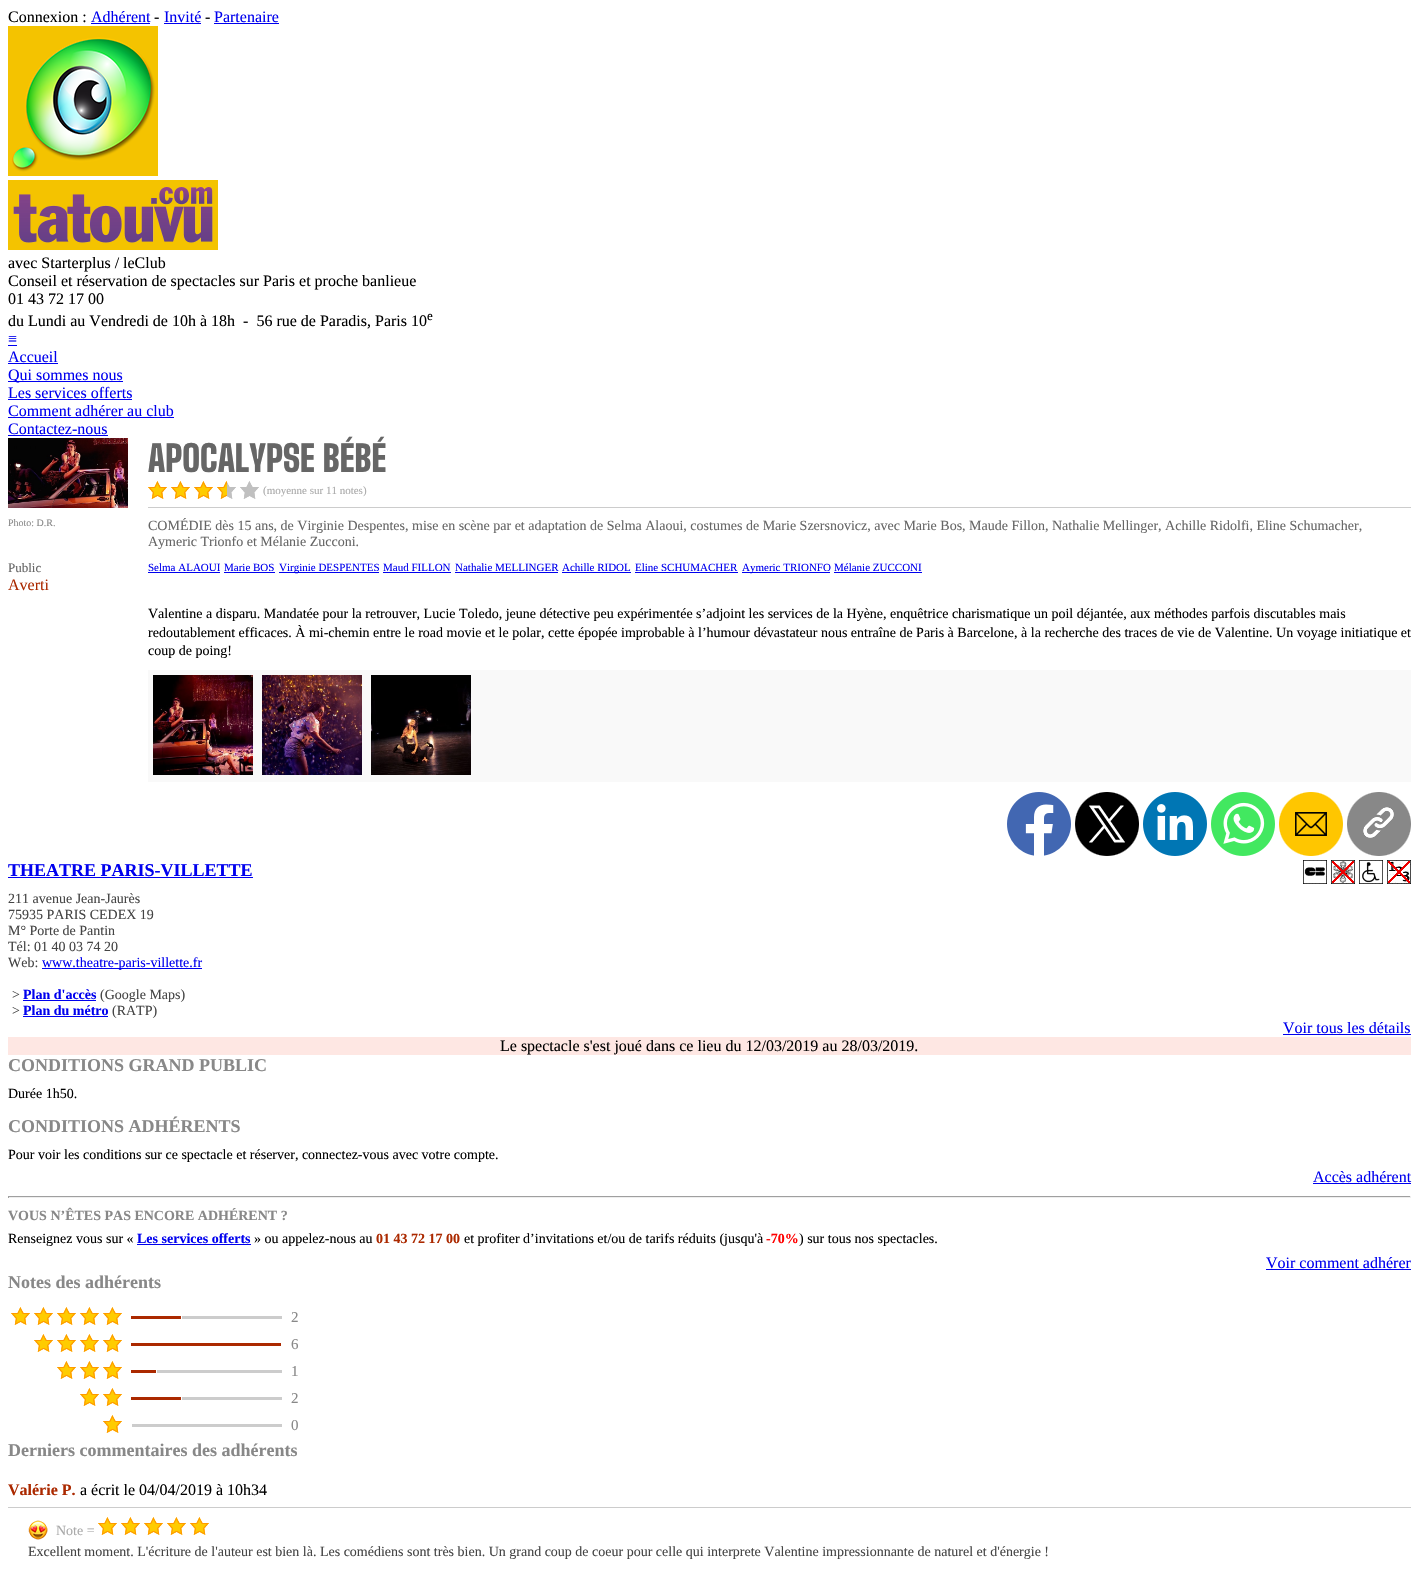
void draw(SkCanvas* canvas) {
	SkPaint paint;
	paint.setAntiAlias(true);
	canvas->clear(0xffffffff);
	SkFont f1(fontMgr->matchFamilyStyle("Liberation Serif", SkFontStyle::Normal()), 16);
	f1.setSubpixel(true);
	paint.setColor(0xff000000);
	canvas->drawString("Connexion :", 8, 22, f1, paint);
	paint.setColor(0xff0000ee);
	canvas->drawString("Adhérent", 91, 22, f1, paint);
	canvas->drawRect(SkRect::MakeXYWH(91, 23, 59, 1), paint);
	paint.setColor(0xff000000);
	canvas->drawString("-", 154, 22, f1, paint);
	paint.setColor(0xff0000ee);
	canvas->drawString("Invité", 164, 22, f1, paint);
	canvas->drawRect(SkRect::MakeXYWH(164, 23, 37, 1), paint);
	paint.setColor(0xff000000);
	canvas->drawString("-", 205, 22, f1, paint);
	paint.setColor(0xff0000ee);
	canvas->drawString("Partenaire", 214, 22, f1, paint);
	canvas->drawRect(SkRect::MakeXYWH(214, 23, 65, 1), paint);
	canvas->drawImageRect(SkImages::DeferredFromEncodedData(SkData::MakeFromFileName("img1.png")), SkRect::MakeXYWH(8, 26, 150, 150), SkSamplingOptions());
	canvas->drawImageRect(SkImages::DeferredFromEncodedData(SkData::MakeFromFileName("img2.png")), SkRect::MakeXYWH(8, 180, 210, 70), SkSamplingOptions());
	paint.setColor(0xff000000);
	canvas->drawString("avec Starterplus / leClub", 8, 268, f1, paint);
	canvas->drawString("Conseil et réservation de spectacles sur Paris et proche banlieue", 8, 286, f1, paint);
	canvas->drawString("01 43 72 17 00", 8, 304, f1, paint);
	canvas->drawString("du Lundi au Vendredi de 10h à 18h  -  56 rue de Paradis, Paris 10", 8, 326, f1, paint);
	SkFont f2(fontMgr->matchFamilyStyle("Liberation Serif", SkFontStyle::Normal()), 13);
	f2.setSubpixel(true);
	canvas->drawString("e", 427, 320, f2, paint);
	paint.setColor(0xff0000ee);
	canvas->drawString("≡", 8, 344, f1, paint);
	canvas->drawRect(SkRect::MakeXYWH(8, 345, 9, 1), paint);
	canvas->drawString("Accueil", 8, 362, f1, paint);
	canvas->drawRect(SkRect::MakeXYWH(8, 363, 50, 1), paint);
	canvas->drawRect(SkRect::MakeXYWH(8, 381, 115, 1), paint);
	canvas->drawString("Qui sommes nous", 8, 380, f1, paint);
	canvas->drawString("Les services offerts", 8, 398, f1, paint);
	canvas->drawRect(SkRect::MakeXYWH(8, 399, 124, 1), paint);
	canvas->drawString("Comment adhérer au club", 8, 416, f1, paint);
	canvas->drawRect(SkRect::MakeXYWH(8, 417, 166, 1), paint);
	canvas->drawString("Contactez-nous", 8, 434, f1, paint);
	canvas->drawRect(SkRect::MakeXYWH(8, 435, 100, 1), paint);
	canvas->drawImageRect(SkImages::DeferredFromEncodedData(SkData::MakeFromFileName("img3.png")), SkRect::MakeXYWH(8, 438, 120, 70), SkSamplingOptions());
	SkFont f3(fontMgr->matchFamilyStyle("Liberation Serif", SkFontStyle::Normal()), 10);
	f3.setSubpixel(true);
	paint.setColor(0xff888888);
	canvas->drawString("Photo: D.R.", 8, 526, f3, paint);
	paint.setColor(0xff666666);
	canvas->drawString("Public", 8, 572, f2, paint);
	paint.setColor(0xffab2900);
	canvas->drawString("Averti", 8, 590, f1, paint);
	SkFont f4(fontMgr->matchFamilyStyle("Big Shoulders Display", SkFontStyle(900, SkFontStyle::kNormal_Width, SkFontStyle::kUpright_Slant)), 36);
	f4.setSubpixel(true);
	paint.setColor(0xff666666);
	canvas->drawString("APOCALYPSE BÉBÉ", 148, 472, f4, paint);
	canvas->drawImageRect(SkImages::DeferredFromEncodedData(SkData::MakeFromFileName("img4.png")), SkRect::MakeXYWH(148, 481, 19, 18), SkSamplingOptions());
	canvas->drawImageRect(SkImages::DeferredFromEncodedData(SkData::MakeFromFileName("img4.png")), SkRect::MakeXYWH(171, 481, 19, 18), SkSamplingOptions());
	canvas->drawImageRect(SkImages::DeferredFromEncodedData(SkData::MakeFromFileName("img4.png")), SkRect::MakeXYWH(194, 481, 19, 18), SkSamplingOptions());
	canvas->drawImageRect(SkImages::DeferredFromEncodedData(SkData::MakeFromFileName("img5.png")), SkRect::MakeXYWH(217, 481, 19, 18), SkSamplingOptions());
	canvas->drawImageRect(SkImages::DeferredFromEncodedData(SkData::MakeFromFileName("img6.png")), SkRect::MakeXYWH(240, 481, 19, 18), SkSamplingOptions());
	SkFont f5(fontMgr->matchFamilyStyle("Liberation Serif", SkFontStyle::Normal()), 11);
	f5.setSubpixel(true);
	paint.setColor(0xffaaaaaa);
	canvas->drawString("(moyenne sur 11 notes)", 263, 494, f5, paint);
	paint.setColor(0xffcccccc);
	canvas->drawRect(SkRect::MakeXYWH(148, 507, 1263, 1), paint);
	SkFont f6(fontMgr->matchFamilyStyle("Liberation Serif", SkFontStyle::Normal()), 14);
	f6.setSubpixel(true);
	paint.setColor(0xff666666);
	canvas->drawString("COMÉDIE dès 15 ans, de Virginie Despentes, mise en scène par et adaptation de Selma Alaoui, costumes de Marie Szersnovicz, avec Marie Bos, Maude Fillon, Nathalie Mellinger, Achille Ridolfi, Eline Schumacher,", 148, 530, f6, paint);
	canvas->drawString("Aymeric Trionfo et Mélanie Zucconi.", 148, 546, f6, paint);
	paint.setColor(0xff0000ee);
	canvas->drawString("Selma ALAOUI", 148, 571, f5, paint);
	canvas->drawRect(SkRect::MakeXYWH(148, 572, 72, 1), paint);
	canvas->drawString("Marie BOS", 224, 571, f5, paint);
	canvas->drawRect(SkRect::MakeXYWH(224, 572, 51, 1), paint);
	canvas->drawRect(SkRect::MakeXYWH(279, 572, 100, 1), paint);
	canvas->drawString("Virginie DESPENTES", 279, 571, f5, paint);
	canvas->drawString("Maud FILLON", 383, 571, f5, paint);
	canvas->drawRect(SkRect::MakeXYWH(383, 572, 68, 1), paint);
	canvas->drawString("Nathalie MELLINGER", 455, 571, f5, paint);
	canvas->drawRect(SkRect::MakeXYWH(455, 572, 103, 1), paint);
	canvas->drawString("Achille RIDOL", 562, 571, f5, paint);
	canvas->drawRect(SkRect::MakeXYWH(562, 572, 69, 1), paint);
	canvas->drawString("Eline SCHUMACHER", 635, 571, f5, paint);
	canvas->drawRect(SkRect::MakeXYWH(635, 572, 103, 1), paint);
	canvas->drawRect(SkRect::MakeXYWH(742, 572, 88, 1), paint);
	canvas->drawString("Aymeric TRIONFO", 742, 571, f5, paint);
	canvas->drawString("Mélanie ZUCCONI", 834, 571, f5, paint);
	canvas->drawRect(SkRect::MakeXYWH(834, 572, 88, 1), paint);
	paint.setColor(0xff000000);
	canvas->drawString("Valentine a disparu. Mandatée pour la retrouver, Lucie Toledo, jeune détective peu expérimentée s’adjoint les services de la Hyène, enquêtrice charismatique un poil déjantée, aux méthodes parfois discutables mais", 148, 618, f6, paint);
	canvas->drawString("redoutablement efficaces. À mi-chemin entre le road movie et le polar, cette épopée improbable à l’humour dévastateur nous entraîne de Paris à Barcelone, à la recherche des traces de vie de Valentine. Un voyage initiatique et", 148, 637, f6, paint);
	canvas->drawString("coup de poing!", 148, 655, f6, paint);
	paint.setColor(0xfff9f9f9);
	canvas->drawRect(SkRect::MakeXYWH(148, 670, 1263, 112), paint);
	canvas->drawImageRect(SkImages::DeferredFromEncodedData(SkData::MakeFromFileName("img7.png")), SkRect::MakeXYWH(153, 675, 100, 100), SkSamplingOptions());
	canvas->drawImageRect(SkImages::DeferredFromEncodedData(SkData::MakeFromFileName("img8.png")), SkRect::MakeXYWH(262, 675, 100, 100), SkSamplingOptions());
	canvas->drawImageRect(SkImages::DeferredFromEncodedData(SkData::MakeFromFileName("img9.png")), SkRect::MakeXYWH(371, 675, 100, 100), SkSamplingOptions());
	canvas->drawImageRect(SkImages::DeferredFromEncodedData(SkData::MakeFromFileName("img10.png")), SkRect::MakeXYWH(1007, 792, 64, 64), SkSamplingOptions());
	canvas->drawImageRect(SkImages::DeferredFromEncodedData(SkData::MakeFromFileName("img11.png")), SkRect::MakeXYWH(1075, 792, 64, 64), SkSamplingOptions());
	canvas->drawImageRect(SkImages::DeferredFromEncodedData(SkData::MakeFromFileName("img12.png")), SkRect::MakeXYWH(1143, 792, 64, 64), SkSamplingOptions());
	canvas->drawImageRect(SkImages::DeferredFromEncodedData(SkData::MakeFromFileName("img13.png")), SkRect::MakeXYWH(1211, 792, 64, 64), SkSamplingOptions());
	canvas->drawImageRect(SkImages::DeferredFromEncodedData(SkData::MakeFromFileName("img14.png")), SkRect::MakeXYWH(1279, 792, 64, 64), SkSamplingOptions());
	canvas->drawImageRect(SkImages::DeferredFromEncodedData(SkData::MakeFromFileName("img15.png")), SkRect::MakeXYWH(1347, 792, 64, 64), SkSamplingOptions());
	SkFont f7(fontMgr->matchFamilyStyle("Liberation Serif", SkFontStyle::Bold()), 18);
	f7.setSubpixel(true);
	paint.setColor(0xff0000ee);
	canvas->drawString("THEATRE PARIS-VILLETTE", 8, 876, f7, paint);
	canvas->drawRect(SkRect::MakeXYWH(8, 877, 245, 1), paint);
	canvas->drawImageRect(SkImages::DeferredFromEncodedData(SkData::MakeFromFileName("img16.png")), SkRect::MakeXYWH(1303, 860, 24, 24), SkSamplingOptions());
	canvas->drawImageRect(SkImages::DeferredFromEncodedData(SkData::MakeFromFileName("img17.png")), SkRect::MakeXYWH(1331, 860, 24, 24), SkSamplingOptions());
	canvas->drawImageRect(SkImages::DeferredFromEncodedData(SkData::MakeFromFileName("img18.png")), SkRect::MakeXYWH(1359, 860, 24, 24), SkSamplingOptions());
	canvas->drawImageRect(SkImages::DeferredFromEncodedData(SkData::MakeFromFileName("img19.png")), SkRect::MakeXYWH(1387, 860, 24, 24), SkSamplingOptions());
	paint.setColor(0xff444444);
	canvas->drawString("211 avenue Jean-Jaurès", 8, 903, f6, paint);
	canvas->drawString("75935 PARIS CEDEX 19", 8, 919, f6, paint);
	canvas->drawString("M° Porte de Pantin", 8, 935, f6, paint);
	canvas->drawString("Tél: 01 40 03 74 20", 8, 951, f6, paint);
	canvas->drawString("Web:", 8, 967, f6, paint);
	paint.setColor(0xff0000ee);
	canvas->drawRect(SkRect::MakeXYWH(42, 968, 160, 1), paint);
	canvas->drawString("www.theatre-paris-villette.fr", 42, 967, f6, paint);
	paint.setColor(0xff444444);
	canvas->drawString(">", 12, 999, f6, paint);
	SkFont f8(fontMgr->matchFamilyStyle("Liberation Serif", SkFontStyle::Bold()), 14);
	f8.setSubpixel(true);
	paint.setColor(0xff0000ee);
	canvas->drawString("Plan d'accès", 23, 999, f8, paint);
	canvas->drawRect(SkRect::MakeXYWH(23, 1000, 73, 1), paint);
	paint.setColor(0xff444444);
	canvas->drawString("(Google Maps)", 100, 999, f6, paint);
	canvas->drawString(">", 12, 1015, f6, paint);
	paint.setColor(0xff0000ee);
	canvas->drawString("Plan du métro", 23, 1015, f8, paint);
	canvas->drawRect(SkRect::MakeXYWH(23, 1016, 85, 1), paint);
	paint.setColor(0xff444444);
	canvas->drawString("(RATP)", 112, 1015, f6, paint);
	paint.setColor(0xff0000ee);
	canvas->drawString("Voir tous les détails", 1283, 1033, f1, paint);
	canvas->drawRect(SkRect::MakeXYWH(1283, 1034, 128, 1), paint);
	paint.setColor(0xfffee7e3);
	canvas->drawRect(SkRect::MakeXYWH(8, 1037, 1403, 18), paint);
	paint.setColor(0xff000000);
	canvas->drawString("Le spectacle s'est joué dans ce lieu du 12/03/2019 au 28/03/2019.", 500, 1051, f1, paint);
	paint.setColor(0xff888888);
	canvas->drawString("CONDITIONS GRAND PUBLIC", 8, 1071, f7, paint);
	paint.setColor(0xff000000);
	canvas->drawString("Durée 1h50.", 8, 1098, f6, paint);
	paint.setColor(0xff888888);
	canvas->drawString("CONDITIONS ADHÉRENTS", 8, 1132, f7, paint);
	paint.setColor(0xff000000);
	canvas->drawString("Pour voir les conditions sur ce spectacle et réserver, connectez-vous avec votre compte.", 8, 1159, f6, paint);
	paint.setColor(0xff0000ee);
	canvas->drawString("Accès adhérent", 1313, 1182, f1, paint);
	canvas->drawRect(SkRect::MakeXYWH(1313, 1183, 98, 1), paint);
	paint.setColor(0xff9f9f9f);
	canvas->drawRect(SkRect::MakeXYWH(8, 1196, 1403, 1), paint);
	paint.setColor(0xffeeeeee);
	canvas->drawRect(SkRect::MakeXYWH(1410, 1196, 1, 2), paint);
	canvas->drawRect(SkRect::MakeXYWH(8, 1197, 1403, 1), paint);
	paint.setColor(0xff9f9f9f);
	canvas->drawRect(SkRect::MakeXYWH(8, 1196, 1, 2), paint);
	paint.setColor(0xff888888);
	canvas->drawString("VOUS N’ÊTES PAS ENCORE ADHÉRENT ?", 8, 1220, f8, paint);
	paint.setColor(0xff000000);
	canvas->drawString("Renseignez vous sur «", 8, 1243, f6, paint);
	paint.setColor(0xff0000ee);
	canvas->drawString("Les services offerts", 137, 1243, f8, paint);
	canvas->drawRect(SkRect::MakeXYWH(137, 1244, 114, 1), paint);
	paint.setColor(0xff000000);
	canvas->drawString("» ou appelez-nous au", 254, 1243, f6, paint);
	paint.setColor(0xffab2900);
	canvas->drawString("01 43 72 17 00", 376, 1243, f8, paint);
	paint.setColor(0xff000000);
	canvas->drawString("et profiter d’invitations et/ou de tarifs réduits (jusqu'à", 464, 1243, f6, paint);
	paint.setColor(0xffff0000);
	canvas->drawString("-70%", 766, 1243, f8, paint);
	paint.setColor(0xff000000);
	canvas->drawString(") sur tous nos spectacles.", 799, 1243, f6, paint);
	paint.setColor(0xff0000ee);
	canvas->drawString("Voir comment adhérer", 1266, 1268, f1, paint);
	canvas->drawRect(SkRect::MakeXYWH(1266, 1269, 145, 1), paint);
	paint.setColor(0xff888888);
	canvas->drawString("Notes des adhérents", 8, 1288, f7, paint);
	canvas->drawImageRect(SkImages::DeferredFromEncodedData(SkData::MakeFromFileName("img4.png")), SkRect::MakeXYWH(11, 1307, 19, 18), SkSamplingOptions());
	canvas->drawImageRect(SkImages::DeferredFromEncodedData(SkData::MakeFromFileName("img4.png")), SkRect::MakeXYWH(34, 1307, 19, 18), SkSamplingOptions());
	canvas->drawImageRect(SkImages::DeferredFromEncodedData(SkData::MakeFromFileName("img4.png")), SkRect::MakeXYWH(57, 1307, 19, 18), SkSamplingOptions());
	canvas->drawImageRect(SkImages::DeferredFromEncodedData(SkData::MakeFromFileName("img4.png")), SkRect::MakeXYWH(80, 1307, 19, 18), SkSamplingOptions());
	canvas->drawImageRect(SkImages::DeferredFromEncodedData(SkData::MakeFromFileName("img4.png")), SkRect::MakeXYWH(103, 1307, 19, 18), SkSamplingOptions());
	paint.setColor(0xffab2900);
	canvas->drawRect(SkRect::MakeXYWH(131, 1316, 50, 3), paint);
	paint.setColor(0xffcccccc);
	canvas->drawRect(SkRect::MakeXYWH(182, 1316, 100, 3), paint);
	SkFont f9(fontMgr->matchFamilyStyle("Liberation Serif", SkFontStyle::Normal()), 15);
	f9.setSubpixel(true);
	paint.setColor(0xff888888);
	canvas->drawString("2", 291, 1322, f9, paint);
	canvas->drawImageRect(SkImages::DeferredFromEncodedData(SkData::MakeFromFileName("img4.png")), SkRect::MakeXYWH(34, 1334, 19, 18), SkSamplingOptions());
	canvas->drawImageRect(SkImages::DeferredFromEncodedData(SkData::MakeFromFileName("img4.png")), SkRect::MakeXYWH(57, 1334, 19, 18), SkSamplingOptions());
	canvas->drawImageRect(SkImages::DeferredFromEncodedData(SkData::MakeFromFileName("img4.png")), SkRect::MakeXYWH(80, 1334, 19, 18), SkSamplingOptions());
	canvas->drawImageRect(SkImages::DeferredFromEncodedData(SkData::MakeFromFileName("img4.png")), SkRect::MakeXYWH(103, 1334, 19, 18), SkSamplingOptions());
	paint.setColor(0xffab2900);
	canvas->drawRect(SkRect::MakeXYWH(131, 1343, 150, 3), paint);
	paint.setColor(0xff888888);
	canvas->drawString("6", 291, 1349, f9, paint);
	canvas->drawImageRect(SkImages::DeferredFromEncodedData(SkData::MakeFromFileName("img4.png")), SkRect::MakeXYWH(57, 1361, 19, 18), SkSamplingOptions());
	canvas->drawImageRect(SkImages::DeferredFromEncodedData(SkData::MakeFromFileName("img4.png")), SkRect::MakeXYWH(80, 1361, 19, 18), SkSamplingOptions());
	canvas->drawImageRect(SkImages::DeferredFromEncodedData(SkData::MakeFromFileName("img4.png")), SkRect::MakeXYWH(103, 1361, 19, 18), SkSamplingOptions());
	paint.setColor(0xffab2900);
	canvas->drawRect(SkRect::MakeXYWH(131, 1370, 25, 3), paint);
	paint.setColor(0xffcccccc);
	canvas->drawRect(SkRect::MakeXYWH(157, 1370, 125, 3), paint);
	paint.setColor(0xff888888);
	canvas->drawString("1", 291, 1376, f9, paint);
	canvas->drawImageRect(SkImages::DeferredFromEncodedData(SkData::MakeFromFileName("img4.png")), SkRect::MakeXYWH(80, 1388, 19, 18), SkSamplingOptions());
	canvas->drawImageRect(SkImages::DeferredFromEncodedData(SkData::MakeFromFileName("img4.png")), SkRect::MakeXYWH(103, 1388, 19, 18), SkSamplingOptions());
	paint.setColor(0xffab2900);
	canvas->drawRect(SkRect::MakeXYWH(131, 1397, 50, 3), paint);
	paint.setColor(0xffcccccc);
	canvas->drawRect(SkRect::MakeXYWH(182, 1397, 100, 3), paint);
	paint.setColor(0xff888888);
	canvas->drawString("2", 291, 1403, f9, paint);
	canvas->drawImageRect(SkImages::DeferredFromEncodedData(SkData::MakeFromFileName("img4.png")), SkRect::MakeXYWH(103, 1415, 19, 18), SkSamplingOptions());
	paint.setColor(0xffcccccc);
	canvas->drawRect(SkRect::MakeXYWH(132, 1424, 150, 3), paint);
	paint.setColor(0xff888888);
	canvas->drawString("0", 291, 1430, f9, paint);
	canvas->drawString("Derniers commentaires des adhérents", 8, 1456, f7, paint);
	SkFont f10(fontMgr->matchFamilyStyle("Liberation Serif", SkFontStyle::Bold()), 16);
	f10.setSubpixel(true);
	paint.setColor(0xffab2900);
	canvas->drawString("Valérie P.", 8, 1495, f10, paint);
	paint.setColor(0xff000000);
	canvas->drawString("a écrit le 04/04/2019 à 10h34", 80, 1495, f1, paint);
	paint.setColor(0xffcccccc);
	canvas->drawRect(SkRect::MakeXYWH(8, 1507, 1403, 1), paint);
	canvas->drawImageRect(SkImages::DeferredFromEncodedData(SkData::MakeFromFileName("img20.png")), SkRect::MakeXYWH(28, 1520, 20, 20), SkSamplingOptions());
	paint.setColor(0xffaaaaaa);
	canvas->drawString("Note =", 56, 1535, f6, paint);
	canvas->drawImageRect(SkImages::DeferredFromEncodedData(SkData::MakeFromFileName("img4.png")), SkRect::MakeXYWH(98, 1517, 19, 18), SkSamplingOptions());
	canvas->drawImageRect(SkImages::DeferredFromEncodedData(SkData::MakeFromFileName("img4.png")), SkRect::MakeXYWH(121, 1517, 19, 18), SkSamplingOptions());
	canvas->drawImageRect(SkImages::DeferredFromEncodedData(SkData::MakeFromFileName("img4.png")), SkRect::MakeXYWH(144, 1517, 19, 18), SkSamplingOptions());
	canvas->drawImageRect(SkImages::DeferredFromEncodedData(SkData::MakeFromFileName("img4.png")), SkRect::MakeXYWH(167, 1517, 19, 18), SkSamplingOptions());
	canvas->drawImageRect(SkImages::DeferredFromEncodedData(SkData::MakeFromFileName("img4.png")), SkRect::MakeXYWH(190, 1517, 19, 18), SkSamplingOptions());
	paint.setColor(0xff444444);
	canvas->drawString("Excellent moment. L'écriture de l'auteur est bien là. Les comédiens sont très bien. Un grand coup de coeur pour celle qui interprete Valentine impressionnante de naturel et d'énergie !", 28, 1556, f6, paint);
}
